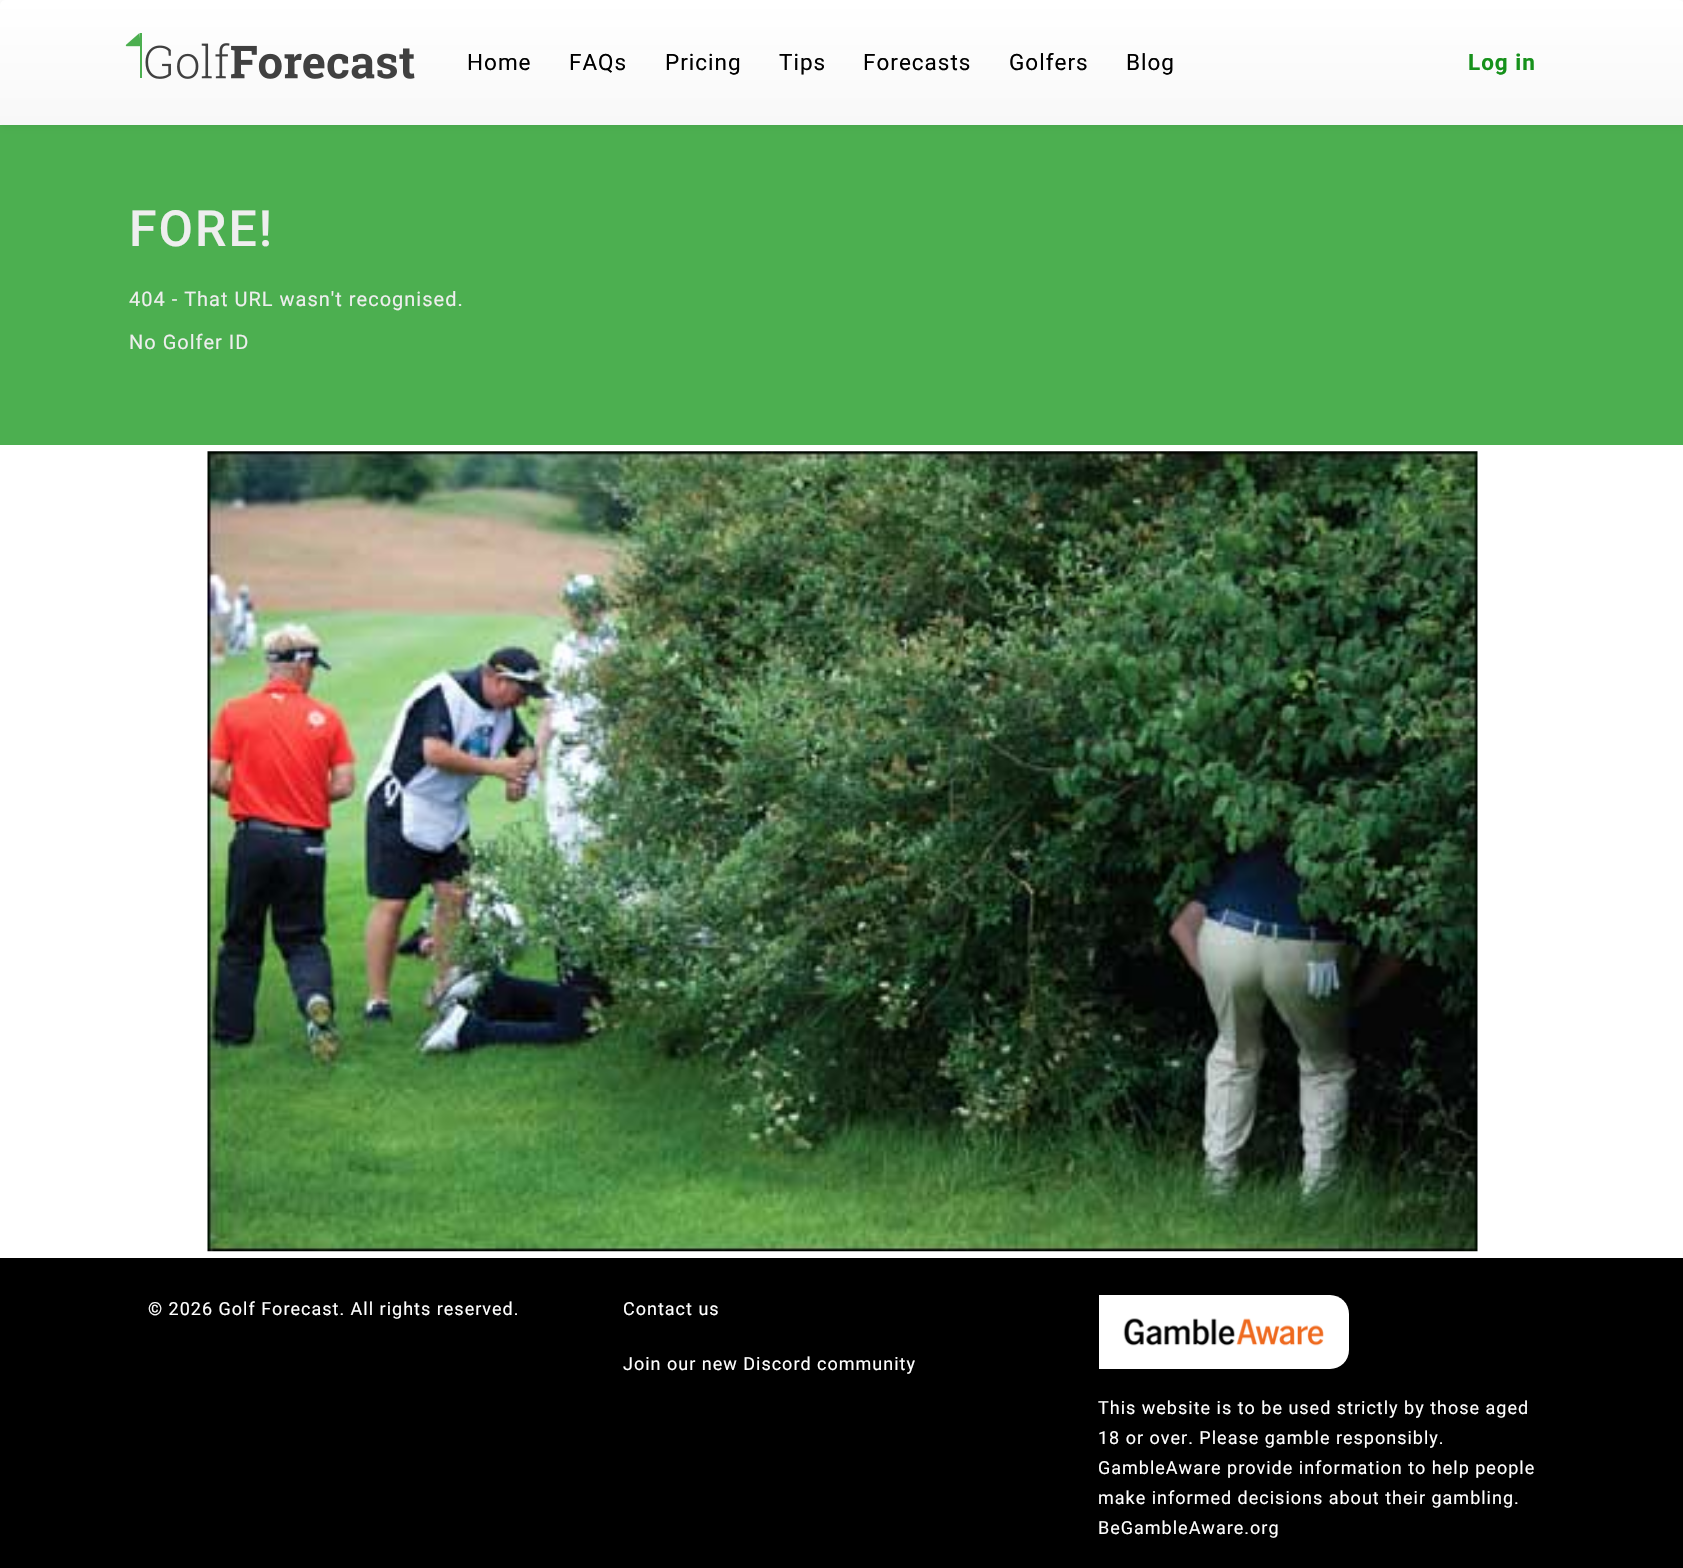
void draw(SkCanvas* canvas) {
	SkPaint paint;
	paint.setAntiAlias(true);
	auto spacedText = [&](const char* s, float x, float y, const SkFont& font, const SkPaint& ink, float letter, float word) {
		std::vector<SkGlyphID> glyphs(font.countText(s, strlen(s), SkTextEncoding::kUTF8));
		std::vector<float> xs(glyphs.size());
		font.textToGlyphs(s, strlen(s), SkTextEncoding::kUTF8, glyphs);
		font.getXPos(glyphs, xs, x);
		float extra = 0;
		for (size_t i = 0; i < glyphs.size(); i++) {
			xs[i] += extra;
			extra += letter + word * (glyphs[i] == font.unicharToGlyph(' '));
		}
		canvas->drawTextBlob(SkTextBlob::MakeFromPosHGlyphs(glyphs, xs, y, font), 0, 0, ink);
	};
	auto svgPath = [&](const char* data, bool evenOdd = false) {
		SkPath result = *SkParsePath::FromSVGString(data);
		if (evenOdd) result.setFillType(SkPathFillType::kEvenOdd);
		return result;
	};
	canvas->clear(0xffffffff);
	paint.setColor(0xff4caf50);
	canvas->drawRect(SkRect::MakeXYWH(0, 125, 1683, 320), paint);
	paint.setColor(0x12000000);
	paint.setMaskFilter(SkMaskFilter::MakeBlur(kNormal_SkBlurStyle, 3));
	canvas->drawRoundRect(SkRect::MakeXYWH(0, 1, 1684, 125), 5, 5, paint);
	paint.setMaskFilter(nullptr);
	{
		const SkColor colors[] = {0xffffffff, 0xfff8f8f8};
		const float stops[] = {0, 1};
		const SkPoint ends[] = {{842, 0}, {842, 125}};
		paint.setShader(SkGradientShader::MakeLinear(ends, colors, stops, 2, SkTileMode::kClamp));
		paint.setAlpha(255);
	}
	canvas->drawRoundRect(SkRect::MakeXYWH(0, 0, 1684, 125), 5, 5, paint);
	canvas->drawImageRect(SkImages::DeferredFromEncodedData(SkData::MakeFromFileName("img1.png")), SkRect::MakeXYWH(125, 33, 290, 46), SkSamplingOptions());
	SkFont f1(fontMgr->matchFamilyStyle("Roboto", SkFontStyle::Normal()), 22.5);
	f1.setSubpixel(true);
	paint.setShader(nullptr);
	paint.setColor(0xff000000);
	spacedText("Home", 467, 70, f1, paint, 1, 0);
	spacedText("FAQs", 569, 70, f1, paint, 1, 0);
	spacedText("Pricing", 665, 70, f1, paint, 1, 0);
	spacedText("Tips", 779, 70, f1, paint, 1, 0);
	spacedText("Forecasts", 863, 70, f1, paint, 1, 0);
	spacedText("Golfers", 1009, 70, f1, paint, 1, 0);
	spacedText("Blog", 1126, 70, f1, paint, 1, 0);
	SkFont f2(fontMgr->matchFamilyStyle("Roboto", SkFontStyle::Bold()), 22.5);
	f2.setSubpixel(true);
	paint.setColor(0xff16911b);
	spacedText("Log in", 1468, 70, f2, paint, 1, 0);
	SkFont f3(fontMgr->matchFamilyStyle("Roboto", SkFontStyle(500, SkFontStyle::kNormal_Width, SkFontStyle::kUpright_Slant)), 50);
	f3.setSubpixel(true);
	paint.setColor(0xffeeeeee);
	spacedText("FORE!", 129, 246, f3, paint, 2, 0);
	SkFont f4(fontMgr->matchFamilyStyle("Roboto", SkFontStyle::Normal()), 20);
	f4.setSubpixel(true);
	spacedText("404 - That URL wasn't recognised.", 129, 306, f4, paint, 1, 0);
	spacedText("No Golfer ID", 129, 349, f4, paint, 1, 0);
	canvas->drawImageRect(SkImages::DeferredFromEncodedData(SkData::MakeFromFileName("img2.png")), SkRect::MakeXYWH(207, 451, 1271, 801), SkSamplingOptions());
	paint.setColor(0xff000000);
	canvas->drawRect(SkRect::MakeXYWH(0, 1258, 1683, 310), paint);
	SkFont f5(fontMgr->matchFamilyStyle("Roboto", SkFontStyle::Normal()), 18);
	f5.setSubpixel(true);
	paint.setColor(0xffffffff);
	spacedText("© 2026 Golf Forecast. All rights reserved.", 148, 1315, f5, paint, 1, 0);
	spacedText("Contact us", 623, 1315, f5, paint, 1, 0);
	spacedText("Join our new Discord community", 623, 1370, f5, paint, 1, 0);
	canvas->drawPath(svgPath("M1099 1295H1330C1340.5 1295 1349 1303.5 1349 1314V1350C1349 1360.5 1340.5 1369 1330 1369H1099Z"), paint);
	canvas->drawImageRect(SkImages::DeferredFromEncodedData(SkData::MakeFromFileName("img3.png")), SkRect::MakeXYWH(1123, 1318, 201, 28), SkSamplingOptions());
	spacedText("This website is to be used strictly by those aged", 1098, 1414, f5, paint, 1, 0);
	spacedText("18 or over. Please gamble responsibly.", 1098, 1444, f5, paint, 1, 0);
	spacedText("GambleAware provide information to help people", 1098, 1474, f5, paint, 1, 0);
	spacedText("make informed decisions about their gambling.", 1098, 1504, f5, paint, 1, 0);
	spacedText("BeGambleAware.org", 1098, 1534, f5, paint, 1, 0);
}
